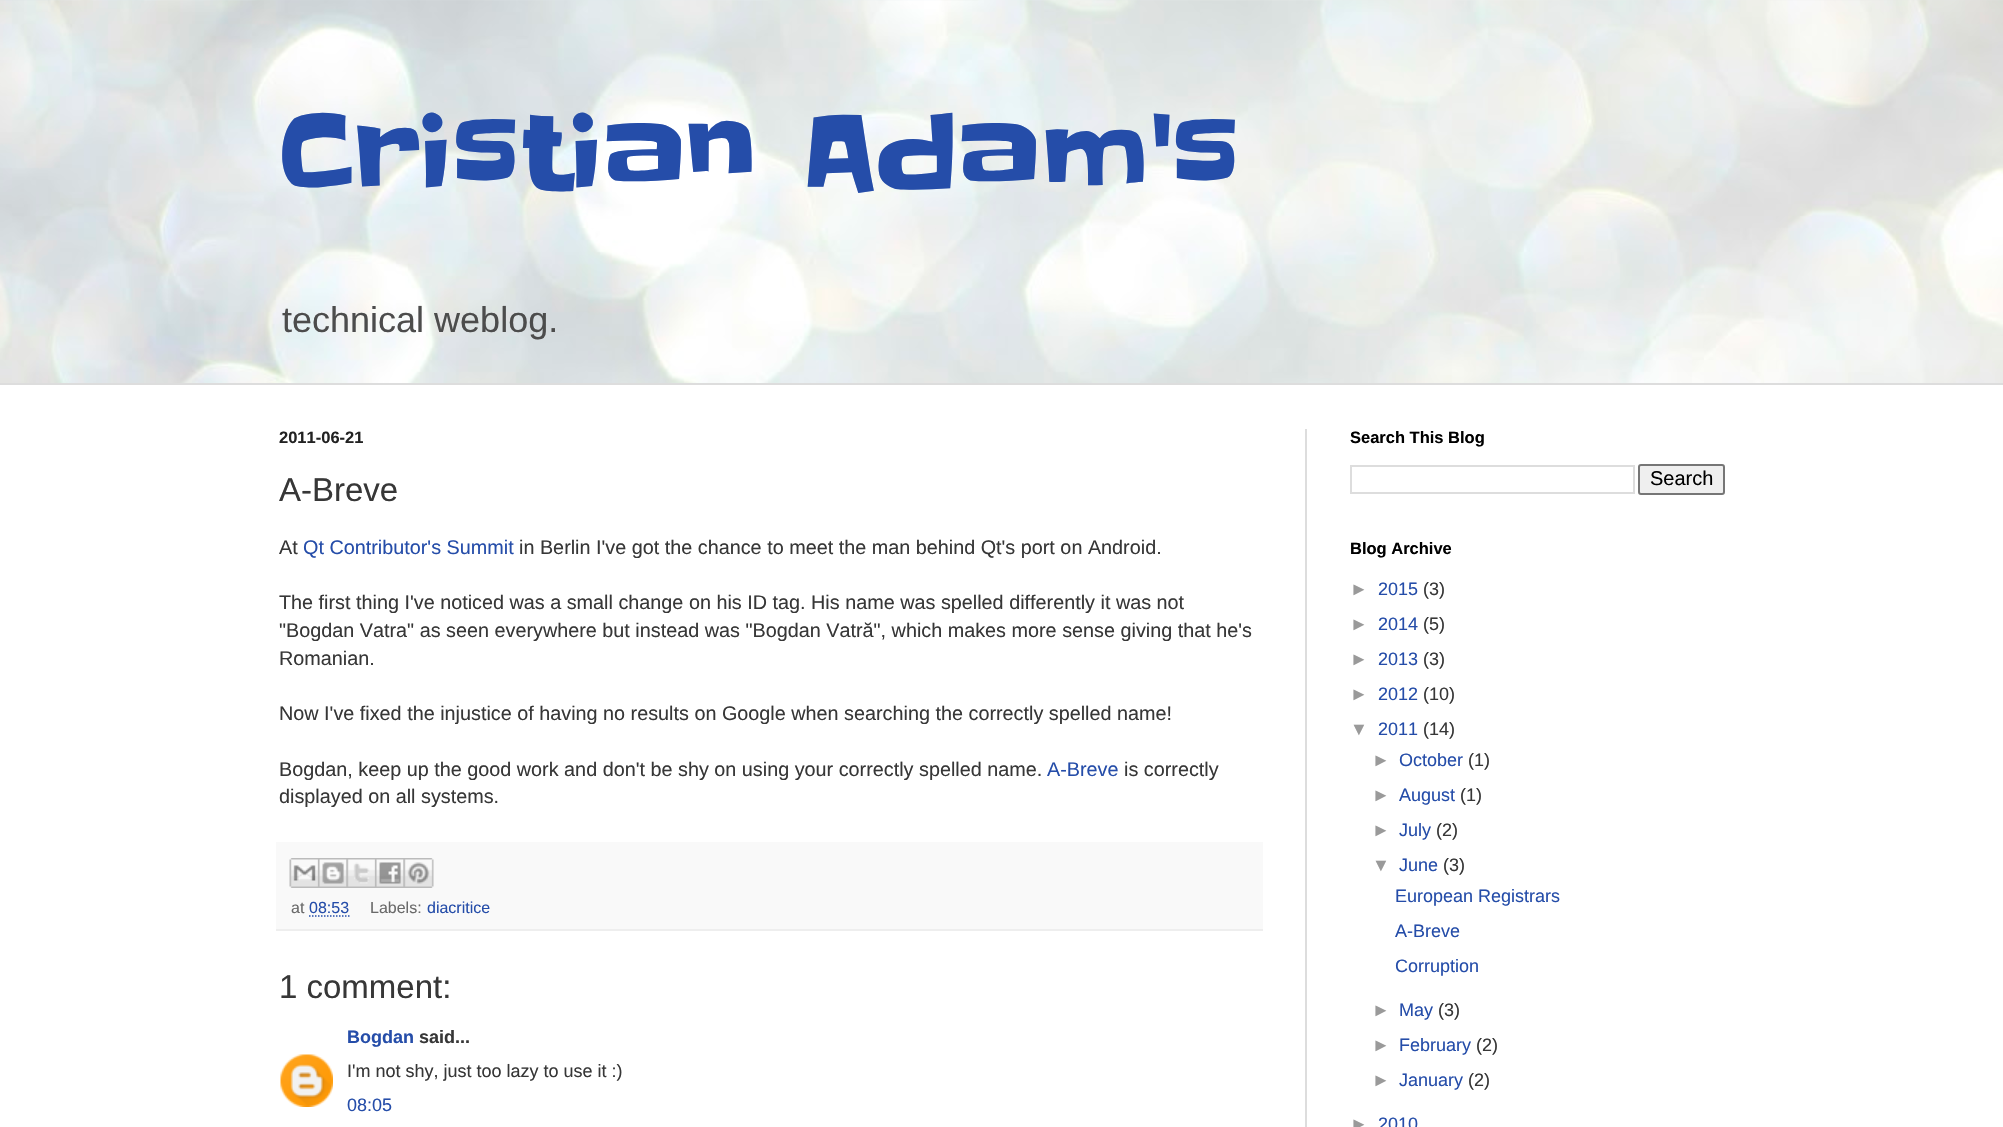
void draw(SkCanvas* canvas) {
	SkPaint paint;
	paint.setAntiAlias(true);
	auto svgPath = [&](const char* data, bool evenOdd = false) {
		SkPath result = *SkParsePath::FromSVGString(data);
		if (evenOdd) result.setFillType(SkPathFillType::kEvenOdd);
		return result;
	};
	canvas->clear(0xffffffff);
	canvas->drawImageRect(SkImages::DeferredFromEncodedData(SkData::MakeFromFileName("img1.png")), SkRect::MakeXYWH(0, 0, 2003, 383), SkSamplingOptions());
	SkFont f1(fontMgr->matchFamilyStyle("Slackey", SkFontStyle::Normal()), 105);
	f1.setSubpixel(true);
	paint.setColor(0xff254da9);
	canvas->drawString("Cristian Adam's", 279, 191, f1, paint);
	SkFont f2(fontMgr->matchFamilyStyle("Liberation Sans", SkFontStyle::Normal()), 36);
	f2.setSubpixel(true);
	paint.setColor(0xff4c4c4c);
	canvas->drawString("technical weblog.", 282, 332, f2, paint);
	paint.setColor(0xffdddddd);
	canvas->drawRect(SkRect::MakeXYWH(0, 383, 2003, 2), paint);
	canvas->drawRect(SkRect::MakeXYWH(1305, 429, 2, 698), paint);
	SkFont f3(fontMgr->matchFamilyStyle("Liberation Sans", SkFontStyle::Bold()), 16.5);
	f3.setSubpixel(true);
	paint.setColor(0xff222222);
	canvas->drawString("2011-06-21", 279, 443, f3, paint);
	SkFont f4(fontMgr->matchFamilyStyle("Liberation Sans", SkFontStyle::Normal()), 33);
	f4.setSubpixel(true);
	paint.setColor(0xff373737);
	canvas->drawString("A-Breve", 279, 501, f4, paint);
	SkFont f5(fontMgr->matchFamilyStyle("Liberation Sans", SkFontStyle::Normal()), 19.8);
	f5.setSubpixel(true);
	canvas->drawString("At", 279, 554, f5, paint);
	paint.setColor(0xff254da9);
	canvas->drawString("Qt Contributor's Summit", 303, 554, f5, paint);
	paint.setColor(0xff373737);
	canvas->drawString("in Berlin I've got the chance to meet the man behind Qt's port on Android.", 519, 554, f5, paint);
	canvas->drawString("The first thing I've noticed was a small change on his ID tag. His name was spelled differently it was not", 279, 609, f5, paint);
	canvas->drawString("\"Bogdan Vatra\" as seen everywhere but instead was \"Bogdan Vatră\", which makes more sense giving that he's", 279, 637, f5, paint);
	canvas->drawString("Romanian.", 279, 665, f5, paint);
	canvas->drawString("Now I've fixed the injustice of having no results on Google when searching the correctly spelled name!", 279, 720, f5, paint);
	canvas->drawString("Bogdan, keep up the good work and don't be shy on using your correctly spelled name.", 279, 776, f5, paint);
	paint.setColor(0xff254da9);
	canvas->drawString("A-Breve", 1047, 776, f5, paint);
	paint.setColor(0xff373737);
	canvas->drawString("is correctly", 1124, 776, f5, paint);
	canvas->drawString("displayed on all systems.", 279, 803, f5, paint);
	paint.setColor(0xfff9f9f9);
	canvas->drawRect(SkRect::MakeXYWH(276, 842, 987, 87), paint);
	paint.setColor(0xffeeeeee);
	canvas->drawRect(SkRect::MakeXYWH(276, 929, 987, 2), paint);
	canvas->drawImageRect(SkImages::DeferredFromEncodedData(SkData::MakeFromFileName("img2.png")), SkRect::MakeXYWH(289, 858, 29, 30), SkSamplingOptions());
	canvas->drawImageRect(SkImages::DeferredFromEncodedData(SkData::MakeFromFileName("img3.png")), SkRect::MakeXYWH(318, 858, 29, 30), SkSamplingOptions());
	canvas->drawImageRect(SkImages::DeferredFromEncodedData(SkData::MakeFromFileName("img4.png")), SkRect::MakeXYWH(346, 858, 29, 30), SkSamplingOptions());
	canvas->drawImageRect(SkImages::DeferredFromEncodedData(SkData::MakeFromFileName("img5.png")), SkRect::MakeXYWH(375, 858, 29, 30), SkSamplingOptions());
	canvas->drawImageRect(SkImages::DeferredFromEncodedData(SkData::MakeFromFileName("img6.png")), SkRect::MakeXYWH(403, 858, 31, 30), SkSamplingOptions());
	SkFont f6(fontMgr->matchFamilyStyle("Liberation Sans", SkFontStyle::Normal()), 16);
	f6.setSubpixel(true);
	paint.setColor(0xff6a6a6a);
	canvas->drawString("at", 291, 913, f6, paint);
	paint.setColor(0xff254da9);
	canvas->drawString("08:53", 309, 913, f6, paint);
	paint.setStroke(true);
	paint.setStrokeWidth(1.5);
	paint.setPathEffect(SkDashPathEffect::Make({{1.5f, 1.5f}}, 0));
	canvas->drawPath(svgPath("M309 916H349.5"), paint);
	paint.setPathEffect(nullptr);
	paint.setStroke(false);
	paint.setColor(0xff6a6a6a);
	canvas->drawString("Labels:", 370, 913, f6, paint);
	paint.setColor(0xff254da9);
	canvas->drawString("diacritice", 427, 913, f6, paint);
	paint.setColor(0xff373737);
	canvas->drawString("1 comment:", 279, 998, f4, paint);
	SkFont f7(fontMgr->matchFamilyStyle("Liberation Sans", SkFontStyle::Bold()), 18);
	f7.setSubpixel(true);
	paint.setColor(0xff254da9);
	canvas->drawString("Bogdan", 347, 1043, f7, paint);
	paint.setColor(0xff373737);
	canvas->drawString("said...", 419, 1043, f7, paint);
	canvas->drawImageRect(SkImages::DeferredFromEncodedData(SkData::MakeFromFileName("img7.png")), SkRect::MakeXYWH(280, 1054, 53, 53), SkSamplingOptions());
	SkFont f8(fontMgr->matchFamilyStyle("Liberation Sans", SkFontStyle::Normal()), 18);
	f8.setSubpixel(true);
	canvas->drawString("I'm not shy, just too lazy to use it :)", 347, 1077, f8, paint);
	paint.setColor(0xff254da9);
	canvas->drawString("08:05", 347, 1111, f8, paint);
	paint.setColor(0xff000000);
	canvas->drawString("Search This Blog", 1350, 443, f3, paint);
	paint.setStroke(true);
	paint.setStrokeWidth(2);
	paint.setColor(0xffdddddd);
	canvas->drawRect(SkRect::MakeXYWH(1351, 466, 283, 27), paint);
	paint.setStroke(false);
	paint.setColor(0xffefefef);
	canvas->drawRoundRect(SkRect::MakeXYWH(1639, 465, 85, 29), 2, 2, paint);
	paint.setStroke(true);
	paint.setColor(0xff767676);
	canvas->drawRoundRect(SkRect::MakeXYWH(1639, 465, 85, 29), 2, 2, paint);
	SkFont f9(fontMgr->matchFamilyStyle("Liberation Sans", SkFontStyle::Normal()), 20);
	f9.setSubpixel(true);
	paint.setStroke(false);
	paint.setColor(0xff000000);
	canvas->drawString("Search", 1650, 485, f9, paint);
	canvas->drawString("Blog Archive", 1350, 554, f3, paint);
	paint.setColor(0xff9a9a9a);
	canvas->drawString("►", 1350, 595, f8, paint);
	paint.setColor(0xff254da9);
	canvas->drawString("2015", 1378, 595, f8, paint);
	paint.setColor(0xff373737);
	canvas->drawString("(3)", 1423, 595, f8, paint);
	paint.setColor(0xff9a9a9a);
	canvas->drawString("►", 1350, 630, f8, paint);
	paint.setColor(0xff254da9);
	canvas->drawString("2014", 1378, 630, f8, paint);
	paint.setColor(0xff373737);
	canvas->drawString("(5)", 1423, 630, f8, paint);
	paint.setColor(0xff9a9a9a);
	canvas->drawString("►", 1350, 665, f8, paint);
	paint.setColor(0xff254da9);
	canvas->drawString("2013", 1378, 665, f8, paint);
	paint.setColor(0xff373737);
	canvas->drawString("(3)", 1423, 665, f8, paint);
	paint.setColor(0xff9a9a9a);
	canvas->drawString("►", 1350, 700, f8, paint);
	paint.setColor(0xff254da9);
	canvas->drawString("2012", 1378, 700, f8, paint);
	paint.setColor(0xff373737);
	canvas->drawString("(10)", 1423, 700, f8, paint);
	paint.setColor(0xff9a9a9a);
	canvas->drawString("▼", 1350, 735, f8, paint);
	paint.setColor(0xff254da9);
	canvas->drawString("2011", 1378, 735, f8, paint);
	paint.setColor(0xff373737);
	canvas->drawString("(14)", 1423, 735, f8, paint);
	paint.setColor(0xff9a9a9a);
	canvas->drawString("►", 1372, 766, f8, paint);
	paint.setColor(0xff254da9);
	canvas->drawString("October", 1399, 766, f8, paint);
	paint.setColor(0xff373737);
	canvas->drawString("(1)", 1468, 766, f8, paint);
	paint.setColor(0xff9a9a9a);
	canvas->drawString("►", 1372, 801, f8, paint);
	paint.setColor(0xff254da9);
	canvas->drawString("August", 1399, 801, f8, paint);
	paint.setColor(0xff373737);
	canvas->drawString("(1)", 1460, 801, f8, paint);
	paint.setColor(0xff9a9a9a);
	canvas->drawString("►", 1372, 836, f8, paint);
	paint.setColor(0xff254da9);
	canvas->drawString("July", 1399, 836, f8, paint);
	paint.setColor(0xff373737);
	canvas->drawString("(2)", 1436, 836, f8, paint);
	paint.setColor(0xff9a9a9a);
	canvas->drawString("▼", 1372, 871, f8, paint);
	paint.setColor(0xff254da9);
	canvas->drawString("June", 1399, 871, f8, paint);
	paint.setColor(0xff373737);
	canvas->drawString("(3)", 1443, 871, f8, paint);
	paint.setColor(0xff254da9);
	canvas->drawString("European Registrars", 1395, 902, f8, paint);
	canvas->drawString("A-Breve", 1395, 937, f8, paint);
	canvas->drawString("Corruption", 1395, 972, f8, paint);
	paint.setColor(0xff9a9a9a);
	canvas->drawString("►", 1372, 1016, f8, paint);
	paint.setColor(0xff254da9);
	canvas->drawString("May", 1399, 1016, f8, paint);
	paint.setColor(0xff373737);
	canvas->drawString("(3)", 1438, 1016, f8, paint);
	paint.setColor(0xff9a9a9a);
	canvas->drawString("►", 1372, 1051, f8, paint);
	paint.setColor(0xff254da9);
	canvas->drawString("February", 1399, 1051, f8, paint);
	paint.setColor(0xff373737);
	canvas->drawString("(2)", 1476, 1051, f8, paint);
	paint.setColor(0xff9a9a9a);
	canvas->drawString("►", 1372, 1086, f8, paint);
	paint.setColor(0xff254da9);
	canvas->drawString("January", 1399, 1086, f8, paint);
	paint.setColor(0xff373737);
	canvas->drawString("(2)", 1468, 1086, f8, paint);
	paint.setColor(0xff9a9a9a);
	canvas->drawString("►", 1350, 1130, f8, paint);
	paint.setColor(0xff254da9);
	canvas->drawString("2010", 1378, 1130, f8, paint);
}
